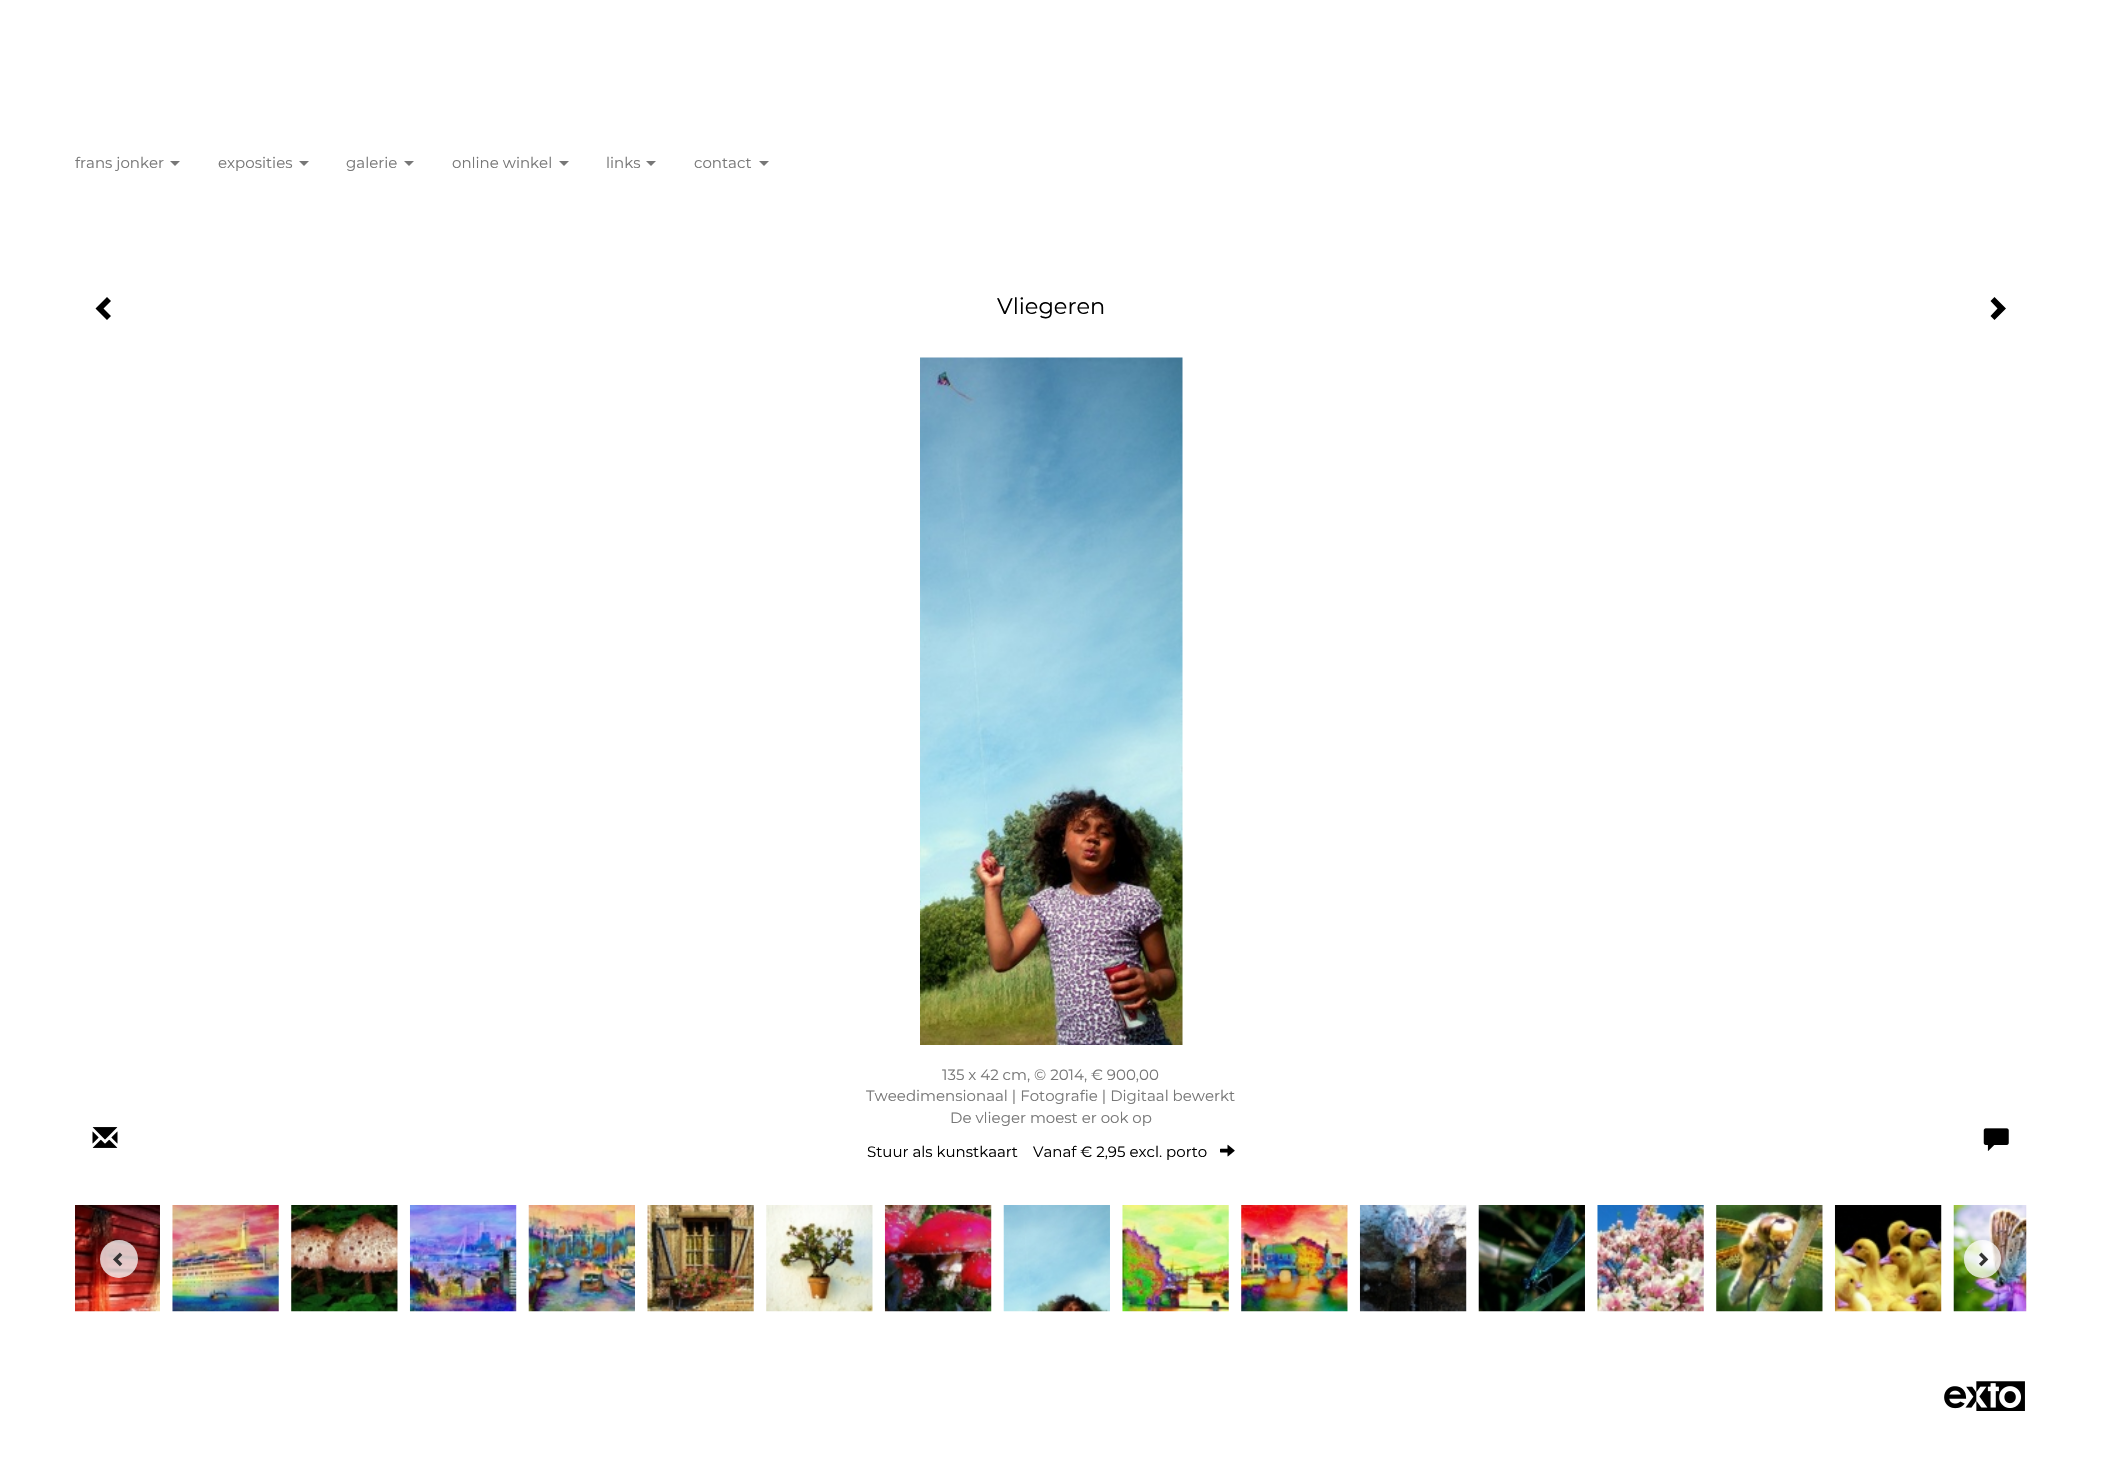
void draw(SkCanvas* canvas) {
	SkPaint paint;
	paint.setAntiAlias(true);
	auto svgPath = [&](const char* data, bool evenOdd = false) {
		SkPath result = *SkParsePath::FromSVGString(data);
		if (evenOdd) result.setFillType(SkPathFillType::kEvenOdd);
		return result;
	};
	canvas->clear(0xffffffff);
	SkFont f1(fontMgr->matchFamilyStyle("Montserrat", SkFontStyle(100, SkFontStyle::kNormal_Width, SkFontStyle::kUpright_Slant)), 15);
	f1.setSubpixel(true);
	paint.setColor(0xff777777);
	canvas->drawString("frans jonker", 75, 168, f1, paint);
	canvas->drawPath(svgPath("M170 161H180L175 166Z"), paint);
	canvas->drawString("exposities", 218, 168, f1, paint);
	canvas->drawPath(svgPath("M299 161H309L304 166Z"), paint);
	canvas->drawString("galerie", 346, 168, f1, paint);
	canvas->drawPath(svgPath("M404 161H414L409 166Z"), paint);
	canvas->drawString("online winkel", 452, 168, f1, paint);
	canvas->drawPath(svgPath("M559 161H569L564 166Z"), paint);
	canvas->drawString("links", 606, 168, f1, paint);
	canvas->drawPath(svgPath("M646 161H656L651 166Z"), paint);
	canvas->drawString("contact", 694, 168, f1, paint);
	canvas->drawPath(svgPath("M759 161H769L764 166Z"), paint);
	paint.setColor(0xff000000);
	canvas->drawPath(svgPath("M111 301L103.5 308.5L111 316L107 320L95.5 308.5L107 297Z"), paint);
	SkFont f2(fontMgr->matchFamilyStyle("Montserrat", SkFontStyle(100, SkFontStyle::kNormal_Width, SkFontStyle::kUpright_Slant)), 22.5);
	f2.setSubpixel(true);
	canvas->drawString("Vliegeren", 997, 314, f2, paint);
	canvas->drawPath(svgPath("M2006 308.5L1994.5 320L1990.5 316L1997.5 308.5L1990.5 301L1994.5 297Z"), paint);
	canvas->drawImageRect(SkImages::DeferredFromEncodedData(SkData::MakeFromFileName("img1.png")), SkRect::MakeXYWH(920, 357, 263, 688), SkSamplingOptions());
	paint.setColor(0xff777777);
	canvas->drawString("135 x 42 cm, © 2014, € 900,00", 942, 1080, f1, paint);
	canvas->drawString("Tweedimensionaal | Fotografie | Digitaal bewerkt", 866, 1101, f1, paint);
	canvas->drawString("De vlieger moest er ook op", 950, 1123, f1, paint);
	canvas->drawImageRect(SkImages::DeferredFromEncodedData(SkData::MakeFromFileName("img2.png")), SkRect::MakeXYWH(92, 1127, 26, 21), SkSamplingOptions());
	canvas->drawImageRect(SkImages::DeferredFromEncodedData(SkData::MakeFromFileName("img3.png")), SkRect::MakeXYWH(1983, 1128, 26, 23), SkSamplingOptions());
	paint.setColor(0xff000000);
	canvas->drawString("Stuur als kunstkaart", 867, 1157, f1, paint);
	canvas->drawString("Vanaf € 2,95 excl. porto", 1033, 1157, f1, paint);
	canvas->drawImageRect(SkImages::DeferredFromEncodedData(SkData::MakeFromFileName("img4.png")), SkRect::MakeXYWH(1220, 1144, 15, 13), SkSamplingOptions());
	canvas->drawImageRect(SkImages::DeferredFromEncodedData(SkData::MakeFromFileName("img5.png")), SkRect::MakeXYWH(75, 1205, 85, 107), SkSamplingOptions());
	canvas->drawImageRect(SkImages::DeferredFromEncodedData(SkData::MakeFromFileName("img6.png")), SkRect::MakeXYWH(172, 1205, 107, 107), SkSamplingOptions());
	canvas->drawImageRect(SkImages::DeferredFromEncodedData(SkData::MakeFromFileName("img7.png")), SkRect::MakeXYWH(291, 1205, 107, 107), SkSamplingOptions());
	canvas->drawImageRect(SkImages::DeferredFromEncodedData(SkData::MakeFromFileName("img8.png")), SkRect::MakeXYWH(409, 1205, 108, 107), SkSamplingOptions());
	canvas->drawImageRect(SkImages::DeferredFromEncodedData(SkData::MakeFromFileName("img9.png")), SkRect::MakeXYWH(528, 1205, 107, 107), SkSamplingOptions());
	canvas->drawImageRect(SkImages::DeferredFromEncodedData(SkData::MakeFromFileName("img10.png")), SkRect::MakeXYWH(647, 1205, 107, 107), SkSamplingOptions());
	canvas->drawImageRect(SkImages::DeferredFromEncodedData(SkData::MakeFromFileName("img11.png")), SkRect::MakeXYWH(766, 1205, 107, 107), SkSamplingOptions());
	canvas->drawImageRect(SkImages::DeferredFromEncodedData(SkData::MakeFromFileName("img12.png")), SkRect::MakeXYWH(884, 1205, 108, 107), SkSamplingOptions());
	canvas->drawImageRect(SkImages::DeferredFromEncodedData(SkData::MakeFromFileName("img13.png")), SkRect::MakeXYWH(1003, 1205, 107, 107), SkSamplingOptions());
	canvas->drawImageRect(SkImages::DeferredFromEncodedData(SkData::MakeFromFileName("img14.png")), SkRect::MakeXYWH(1122, 1205, 107, 107), SkSamplingOptions());
	canvas->drawImageRect(SkImages::DeferredFromEncodedData(SkData::MakeFromFileName("img15.png")), SkRect::MakeXYWH(1241, 1205, 107, 107), SkSamplingOptions());
	canvas->drawImageRect(SkImages::DeferredFromEncodedData(SkData::MakeFromFileName("img16.png")), SkRect::MakeXYWH(1359, 1205, 108, 107), SkSamplingOptions());
	canvas->drawImageRect(SkImages::DeferredFromEncodedData(SkData::MakeFromFileName("img17.png")), SkRect::MakeXYWH(1478, 1205, 107, 107), SkSamplingOptions());
	canvas->drawImageRect(SkImages::DeferredFromEncodedData(SkData::MakeFromFileName("img18.png")), SkRect::MakeXYWH(1597, 1205, 107, 107), SkSamplingOptions());
	canvas->drawImageRect(SkImages::DeferredFromEncodedData(SkData::MakeFromFileName("img19.png")), SkRect::MakeXYWH(1716, 1205, 107, 107), SkSamplingOptions());
	canvas->drawImageRect(SkImages::DeferredFromEncodedData(SkData::MakeFromFileName("img20.png")), SkRect::MakeXYWH(1834, 1205, 108, 107), SkSamplingOptions());
	canvas->drawImageRect(SkImages::DeferredFromEncodedData(SkData::MakeFromFileName("img21.png")), SkRect::MakeXYWH(1953, 1205, 74, 107), SkSamplingOptions());
	paint.setColor(0xbfffffff);
	canvas->drawCircle(119, 1259, 19, paint);
	canvas->drawImageRect(SkImages::DeferredFromEncodedData(SkData::MakeFromFileName("img22.png")), SkRect::MakeXYWH(113, 1252, 10, 15), SkSamplingOptions());
	canvas->drawRoundRect(SkRect::MakeXYWH(1964, 1240, 37, 38), 18.5, 18.5, paint);
	canvas->drawImageRect(SkImages::DeferredFromEncodedData(SkData::MakeFromFileName("img23.png")), SkRect::MakeXYWH(1979, 1252, 10, 15), SkSamplingOptions());
	canvas->drawImageRect(SkImages::DeferredFromEncodedData(SkData::MakeFromFileName("img24.png")), SkRect::MakeXYWH(1944, 1381, 81, 30), SkSamplingOptions());
}
